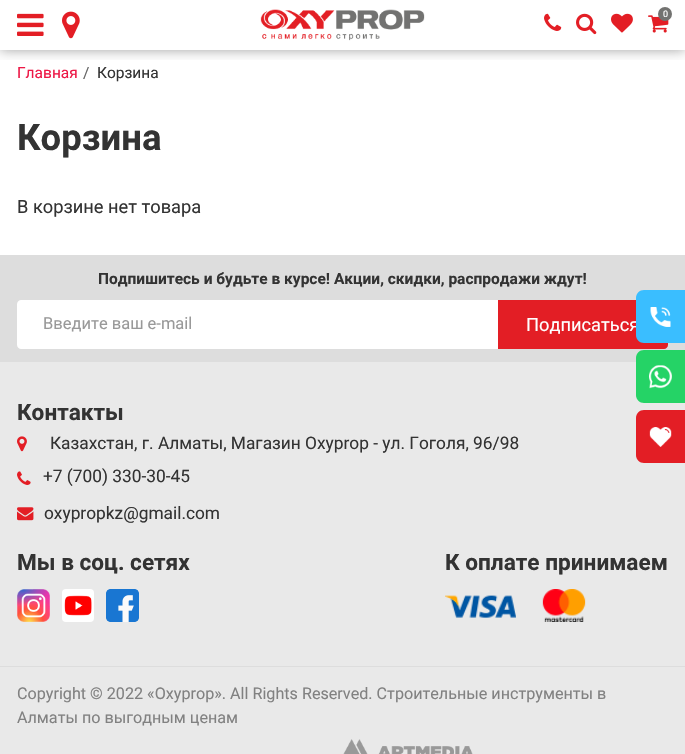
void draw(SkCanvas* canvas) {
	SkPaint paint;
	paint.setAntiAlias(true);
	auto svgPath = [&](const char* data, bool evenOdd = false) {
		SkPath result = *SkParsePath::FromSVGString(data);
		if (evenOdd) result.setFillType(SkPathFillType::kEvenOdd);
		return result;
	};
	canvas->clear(0xffffffff);
	canvas->save();
	canvas->clipRect(SkRect::MakeXYWH(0, 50, 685, 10));
	paint.setColor(0x5e000000);
	paint.setMaskFilter(SkMaskFilter::MakeBlur(kNormal_SkBlurStyle, 6));
	canvas->drawRect(SkRect::MakeXYWH(0, 0, 685, 50), paint);
	paint.setMaskFilter(nullptr);
	canvas->restore();
	canvas->drawImageRect(SkImages::DeferredFromEncodedData(SkData::MakeFromFileName("img1.png")), SkRect::MakeXYWH(17, 13, 27, 23), SkSamplingOptions());
	canvas->drawImageRect(SkImages::DeferredFromEncodedData(SkData::MakeFromFileName("img2.png")), SkRect::MakeXYWH(62, 11, 18, 28), SkSamplingOptions());
	canvas->drawImageRect(SkImages::DeferredFromEncodedData(SkData::MakeFromFileName("img3.png")), SkRect::MakeXYWH(260, 9, 165, 32), SkSamplingOptions());
	canvas->drawImageRect(SkImages::DeferredFromEncodedData(SkData::MakeFromFileName("img4.png")), SkRect::MakeXYWH(544, 13, 18, 18), SkSamplingOptions());
	canvas->drawImageRect(SkImages::DeferredFromEncodedData(SkData::MakeFromFileName("img5.png")), SkRect::MakeXYWH(576, 13, 21, 22), SkSamplingOptions());
	canvas->drawImageRect(SkImages::DeferredFromEncodedData(SkData::MakeFromFileName("img6.png")), SkRect::MakeXYWH(611, 13, 22, 20), SkSamplingOptions());
	canvas->drawImageRect(SkImages::DeferredFromEncodedData(SkData::MakeFromFileName("img7.png")), SkRect::MakeXYWH(648, 15, 21, 18), SkSamplingOptions());
	paint.setColor(0xff727270);
	canvas->drawCircle(665, 14, 7, paint);
	SkFont f1(fontMgr->matchFamilyStyle("Roboto", SkFontStyle::Normal()), 9);
	f1.setSubpixel(true);
	paint.setColor(0xffffffff);
	canvas->drawString("0", 663, 17, f1, paint);
	SkFont f2(fontMgr->matchFamilyStyle("Roboto", SkFontStyle::Normal()), 15.5);
	f2.setSubpixel(true);
	paint.setColor(0xffed1846);
	canvas->drawString("Главная", 17, 78, f2, paint);
	paint.setColor(0xff666666);
	canvas->drawString("/", 83, 78, f2, paint);
	paint.setColor(0xff333333);
	canvas->drawString("Корзина", 97, 78, f2, paint);
	SkFont f3(fontMgr->matchFamilyStyle("Roboto", SkFontStyle::Bold()), 36.5);
	f3.setSubpixel(true);
	canvas->drawString("Корзина", 17, 150, f3, paint);
	SkFont f4(fontMgr->matchFamilyStyle("Roboto", SkFontStyle::Normal()), 18.25);
	f4.setSubpixel(true);
	canvas->drawString("В корзине нет товара", 17, 213, f4, paint);
	paint.setColor(0xffe9e9e9);
	canvas->drawRect(SkRect::MakeXYWH(0, 362, 685, 392), paint);
	paint.setColor(0xffdddddd);
	canvas->drawRect(SkRect::MakeXYWH(0, 255, 685, 107), paint);
	SkFont f5(fontMgr->matchFamilyStyle("Roboto", SkFontStyle::Bold()), 15.5);
	f5.setSubpixel(true);
	paint.setColor(0xff333333);
	canvas->drawString("Подпишитесь и будьте в курсе! Акции, скидки, распродажи ждут!", 98, 284, f5, paint);
	paint.setColor(0xffffffff);
	canvas->drawPath(svgPath("M21 300H498V349H21C19 349 17 347 17 345V304C17 302 19 300 21 300Z"), paint);
	SkFont f6(fontMgr->matchFamilyStyle("Roboto", SkFontStyle::Normal()), 16.5);
	f6.setSubpixel(true);
	paint.setColor(0xff999999);
	canvas->drawString("Введите ваш e-mail", 43, 329, f6, paint);
	paint.setColor(0xffe31e25);
	canvas->drawPath(svgPath("M498 300H664C666 300 668 302 668 304V345C668 347 666 349 664 349H498Z"), paint);
	paint.setColor(0xffffffff);
	canvas->drawString("Подписаться", 526, 331, f4, paint);
	SkFont f7(fontMgr->matchFamilyStyle("Roboto", SkFontStyle::Bold()), 22.6);
	f7.setSubpixel(true);
	paint.setColor(0xff333333);
	canvas->drawString("Контакты", 17, 420, f7, paint);
	canvas->drawImageRect(SkImages::DeferredFromEncodedData(SkData::MakeFromFileName("img8.png")), SkRect::MakeXYWH(17, 436, 10, 16), SkSamplingOptions());
	SkFont f8(fontMgr->matchFamilyStyle("Roboto", SkFontStyle::Normal()), 17.3);
	f8.setSubpixel(true);
	canvas->drawString("Казахстан, г. Алматы, Магазин Oxyprop - ул. Гоголя, 96/98", 50, 449, f8, paint);
	canvas->drawImageRect(SkImages::DeferredFromEncodedData(SkData::MakeFromFileName("img9.png")), SkRect::MakeXYWH(17, 471, 14, 14), SkSamplingOptions());
	canvas->drawString("+7 (700) 330-30-45", 43, 482, f8, paint);
	canvas->drawImageRect(SkImages::DeferredFromEncodedData(SkData::MakeFromFileName("img10.png")), SkRect::MakeXYWH(17, 507, 17, 14), SkSamplingOptions());
	canvas->drawString("oxypropkz@gmail.com", 44, 519, f8, paint);
	canvas->drawString("Мы в соц. сетях", 17, 570, f7, paint);
	canvas->drawImageRect(SkImages::DeferredFromEncodedData(SkData::MakeFromFileName("img11.png")), SkRect::MakeXYWH(17, 589, 33, 33), SkSamplingOptions());
	canvas->drawImageRect(SkImages::DeferredFromEncodedData(SkData::MakeFromFileName("img12.png")), SkRect::MakeXYWH(62, 589, 32, 33), SkSamplingOptions());
	canvas->drawImageRect(SkImages::DeferredFromEncodedData(SkData::MakeFromFileName("img13.png")), SkRect::MakeXYWH(106, 589, 33, 33), SkSamplingOptions());
	canvas->drawString("К оплате принимаем", 445, 570, f7, paint);
	canvas->drawImageRect(SkImages::DeferredFromEncodedData(SkData::MakeFromFileName("img14.png")), SkRect::MakeXYWH(445, 595, 71, 23), SkSamplingOptions());
	canvas->drawImageRect(SkImages::DeferredFromEncodedData(SkData::MakeFromFileName("img15.png")), SkRect::MakeXYWH(542, 589, 44, 33), SkSamplingOptions());
	paint.setColor(0xffdddddd);
	canvas->drawRect(SkRect::MakeXYWH(0, 666, 685, 1), paint);
	SkFont f9(fontMgr->matchFamilyStyle("Roboto", SkFontStyle::Normal()), 16.15);
	f9.setSubpixel(true);
	paint.setColor(0xff818181);
	canvas->drawString("Copyright © 2022 «Oxyprop». All Rights Reserved. Строительные инструменты в", 17, 699, f9, paint);
	canvas->drawString("Алматы по выгодным ценам", 17, 723, f9, paint);
	canvas->drawImageRect(SkImages::DeferredFromEncodedData(SkData::MakeFromFileName("img16.png")), SkRect::MakeXYWH(343, 739, 130, 15), SkSamplingOptions());
	paint.setColor(0xff3abeff);
	canvas->drawPath(svgPath("M644 290H685V343H644C639.5 343 636 339.5 636 335V298C636 293.5 639.5 290 644 290Z"), paint);
	canvas->drawImageRect(SkImages::DeferredFromEncodedData(SkData::MakeFromFileName("img17.png")), SkRect::MakeXYWH(650, 307, 21, 20), SkSamplingOptions());
	paint.setColor(0xff25d366);
	canvas->drawPath(svgPath("M644 350H685V403H644C639.5 403 636 399.5 636 395V358C636 353.5 639.5 350 644 350Z"), paint);
	canvas->drawImageRect(SkImages::DeferredFromEncodedData(SkData::MakeFromFileName("img18.png")), SkRect::MakeXYWH(649, 365, 23, 24), SkSamplingOptions());
	paint.setColor(0xffe31e25);
	canvas->drawPath(svgPath("M644 410H685V463H644C639.5 463 636 459.5 636 455V418C636 413.5 639.5 410 644 410Z"), paint);
	canvas->drawImageRect(SkImages::DeferredFromEncodedData(SkData::MakeFromFileName("img19.png")), SkRect::MakeXYWH(649, 427, 23, 20), SkSamplingOptions());
}
